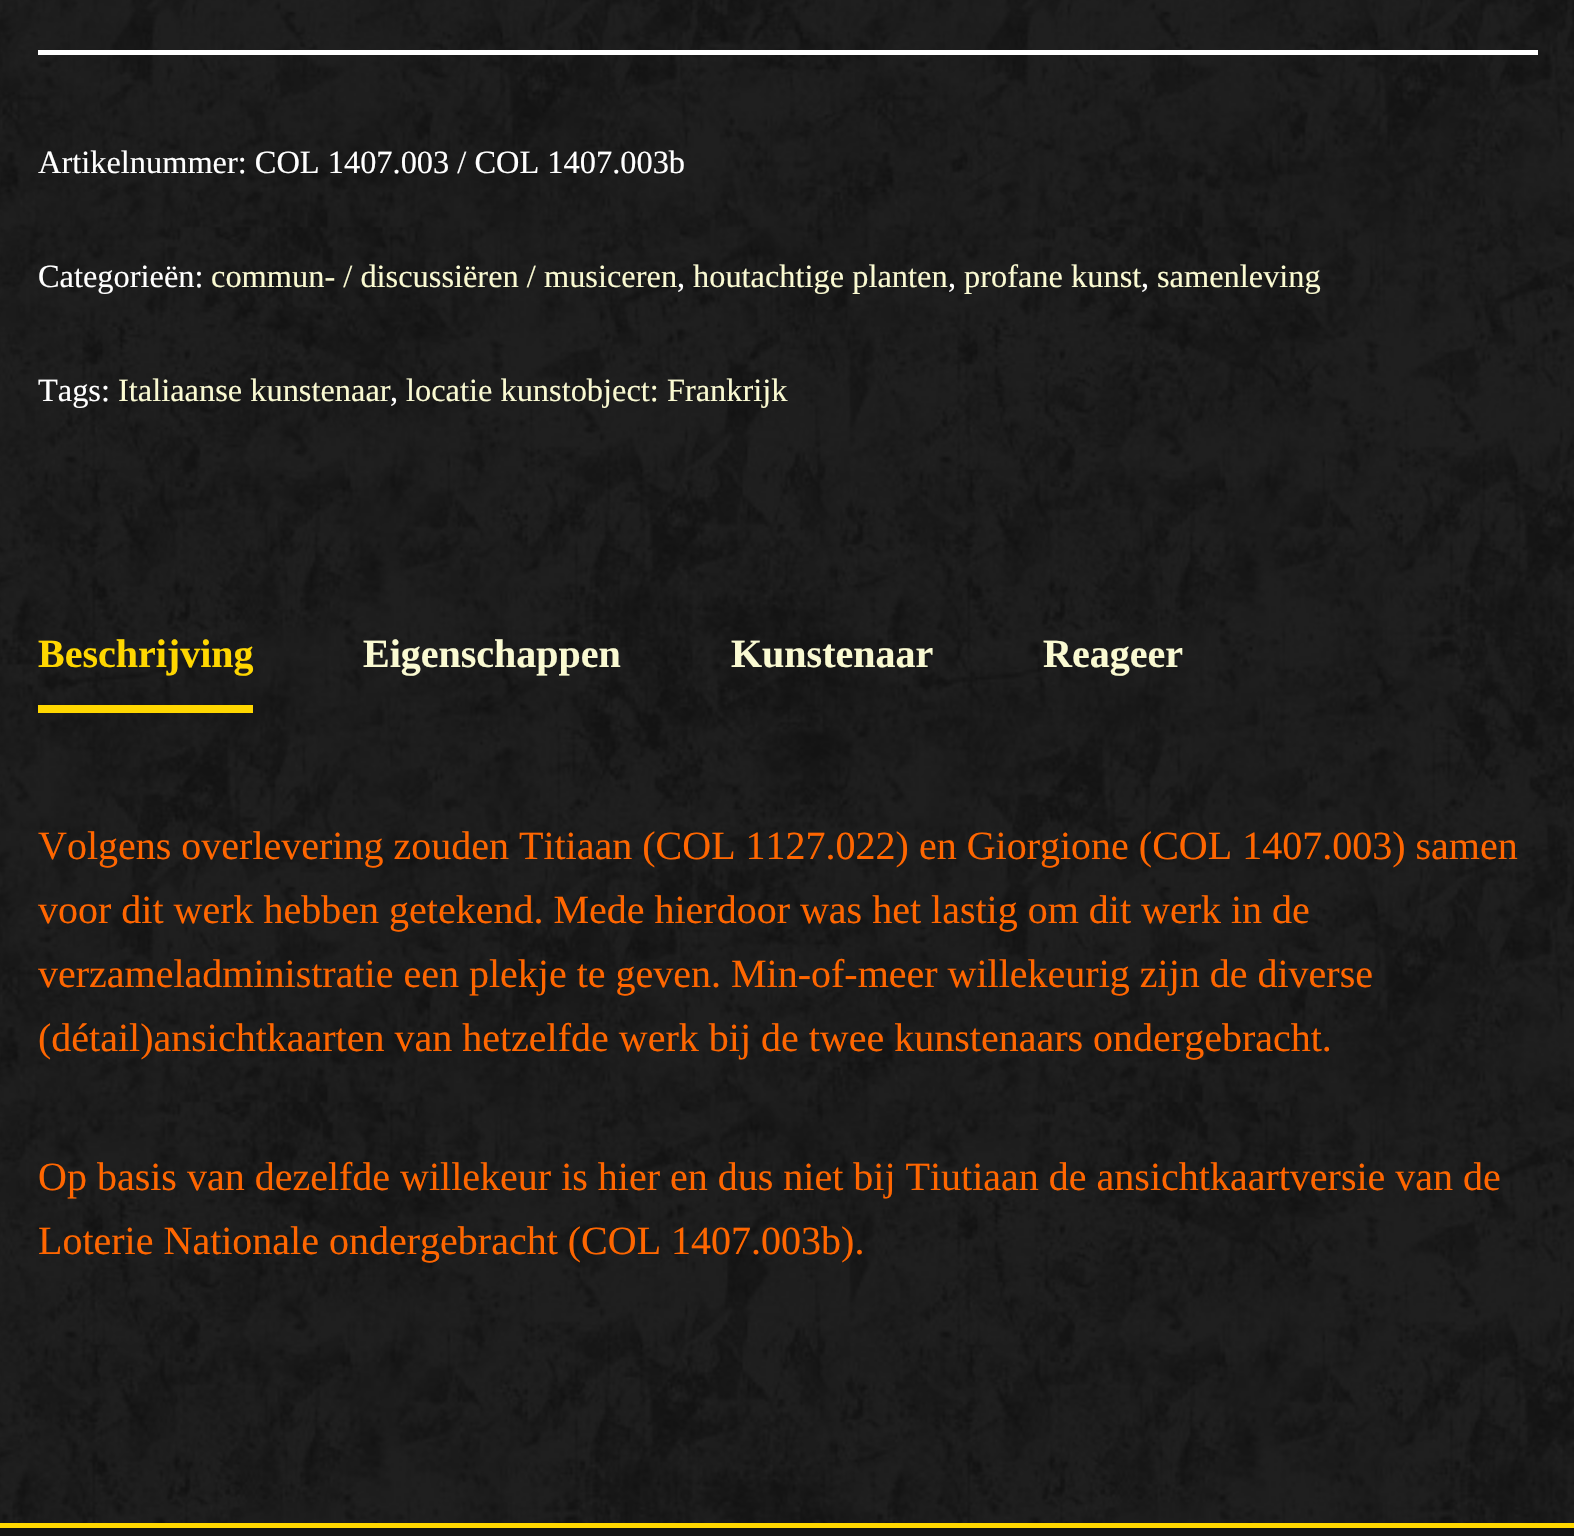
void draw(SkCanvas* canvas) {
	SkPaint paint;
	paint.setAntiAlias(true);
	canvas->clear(0xffffffff);
	canvas->drawImageRect(SkImages::DeferredFromEncodedData(SkData::MakeFromFileName("img1.png")), SkRect::MakeXYWH(0, 0, 1574, 1523), SkSamplingOptions());
	paint.setColor(0xffffffff);
	canvas->drawRect(SkRect::MakeXYWH(38, 50, 1500, 5), paint);
	SkFont f1(fontMgr->matchFamilyStyle("Liberation Serif", SkFontStyle::Normal()), 32.4);
	f1.setSubpixel(true);
	canvas->drawString("Artikelnummer: COL 1407.003 / COL 1407.003b", 38, 173, f1, paint);
	canvas->drawString("Categorieën:", 38, 287, f1, paint);
	paint.setColor(0xfffafad2);
	canvas->drawString("commun- / discussiëren / musiceren", 211, 287, f1, paint);
	paint.setColor(0xffffffff);
	canvas->drawString(",", 677, 287, f1, paint);
	paint.setColor(0xfffafad2);
	canvas->drawString("houtachtige planten", 693, 287, f1, paint);
	paint.setColor(0xffffffff);
	canvas->drawString(",", 948, 287, f1, paint);
	paint.setColor(0xfffafad2);
	canvas->drawString("profane kunst", 964, 287, f1, paint);
	paint.setColor(0xffffffff);
	canvas->drawString(",", 1141, 287, f1, paint);
	paint.setColor(0xfffafad2);
	canvas->drawString("samenleving", 1157, 287, f1, paint);
	paint.setColor(0xffffffff);
	canvas->drawString("Tags:", 38, 401, f1, paint);
	paint.setColor(0xfffafad2);
	canvas->drawString("Italiaanse kunstenaar", 118, 401, f1, paint);
	paint.setColor(0xffffffff);
	canvas->drawString(",", 390, 401, f1, paint);
	paint.setColor(0xfffafad2);
	canvas->drawString("locatie kunstobject: Frankrijk", 406, 401, f1, paint);
	paint.setColor(0xffffd700);
	canvas->drawRect(SkRect::MakeXYWH(38, 705, 215, 8), paint);
	SkFont f2(fontMgr->matchFamilyStyle("Liberation Serif", SkFontStyle::Bold()), 40);
	f2.setSubpixel(true);
	canvas->drawString("Beschrijving", 38, 667, f2, paint);
	paint.setColor(0xfffafad2);
	canvas->drawString("Eigenschappen", 363, 667, f2, paint);
	canvas->drawString("Kunstenaar", 731, 667, f2, paint);
	canvas->drawString("Reageer", 1043, 667, f2, paint);
	SkFont f3(fontMgr->matchFamilyStyle("Liberation Serif", SkFontStyle::Normal()), 40);
	f3.setSubpixel(true);
	paint.setColor(0xffff6600);
	canvas->drawString("Volgens overlevering zouden Titiaan (COL 1127.022) en Giorgione (COL 1407.003) samen", 38, 859, f3, paint);
	canvas->drawString("voor dit werk hebben getekend. Mede hierdoor was het lastig om dit werk in de", 38, 923, f3, paint);
	canvas->drawString("verzameladministratie een plekje te geven. Min-of-meer willekeurig zijn de diverse", 38, 987, f3, paint);
	canvas->drawString("(détail)ansichtkaarten van hetzelfde werk bij de twee kunstenaars ondergebracht.", 38, 1051, f3, paint);
	canvas->drawString("Op basis van dezelfde willekeur is hier en dus niet bij Tiutiaan de ansichtkaartversie van de", 38, 1190, f3, paint);
	canvas->drawString("Loterie Nationale ondergebracht (COL 1407.003b).", 38, 1254, f3, paint);
	paint.setColor(0xffffd700);
	canvas->drawRect(SkRect::MakeXYWH(0, 1523, 1574, 5), paint);
	paint.setColor(0xff121212);
	canvas->drawRect(SkRect::MakeXYWH(0, 1528, 1574, 8), paint);
}
